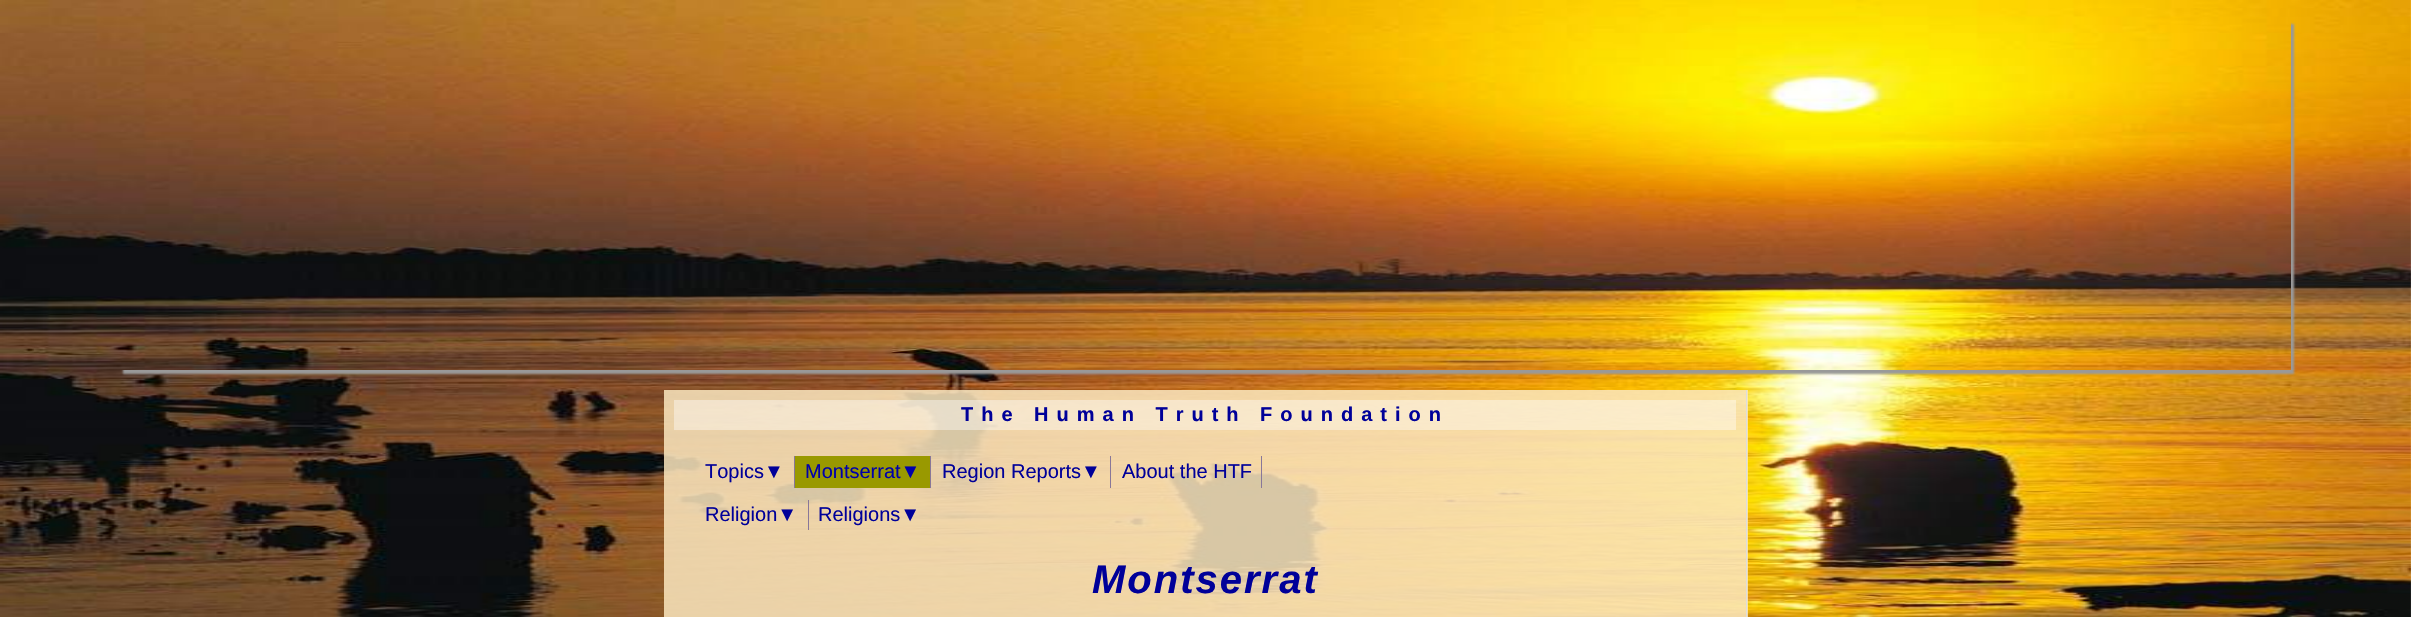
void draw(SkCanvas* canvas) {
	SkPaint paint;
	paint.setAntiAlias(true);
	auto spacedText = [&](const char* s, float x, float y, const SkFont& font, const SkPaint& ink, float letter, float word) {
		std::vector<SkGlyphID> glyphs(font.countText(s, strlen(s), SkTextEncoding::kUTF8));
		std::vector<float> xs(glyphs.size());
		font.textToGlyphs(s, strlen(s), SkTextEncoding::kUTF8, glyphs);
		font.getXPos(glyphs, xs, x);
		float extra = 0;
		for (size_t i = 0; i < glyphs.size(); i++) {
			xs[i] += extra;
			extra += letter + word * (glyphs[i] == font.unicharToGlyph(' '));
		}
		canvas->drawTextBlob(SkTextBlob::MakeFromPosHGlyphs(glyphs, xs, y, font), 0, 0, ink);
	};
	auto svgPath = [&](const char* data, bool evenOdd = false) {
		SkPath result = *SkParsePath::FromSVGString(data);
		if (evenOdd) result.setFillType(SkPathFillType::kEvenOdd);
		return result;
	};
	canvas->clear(0xffffffff);
	canvas->drawImageRect(SkImages::DeferredFromEncodedData(SkData::MakeFromFileName("img1.png")), SkRect::MakeXYWH(0, 0, 2411, 617), SkSamplingOptions());
	canvas->save();
	canvas->clipPath(svgPath("M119 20H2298V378H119ZM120 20H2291V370H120Z", true), true);
	paint.setColor(0xff999999);
	paint.setMaskFilter(SkMaskFilter::MakeBlur(kNormal_SkBlurStyle, 1));
	canvas->drawRect(SkRect::MakeXYWH(123, 24, 2171, 350), paint);
	paint.setMaskFilter(nullptr);
	canvas->restore();
	paint.setColor(0xd9fae6be);
	canvas->drawRect(SkRect::MakeXYWH(664, 390, 1084, 227), paint);
	paint.setColor(0xffdddddd);
	canvas->drawRect(SkRect::MakeXYWH(1746, 390, 1, 227), paint);
	paint.setColor(0x66ffffff);
	canvas->drawRect(SkRect::MakeXYWH(674, 400, 1062, 30), paint);
	SkFont f1(fontMgr->matchFamilyStyle("Liberation Sans", SkFontStyle::Bold()), 20);
	f1.setSubpixel(true);
	paint.setColor(0xff000099);
	spacedText("The Human Truth Foundation", 961, 421, f1, paint, 8, 0);
	paint.setColor(0xff887799);
	canvas->drawRect(SkRect::MakeXYWH(794, 456, 1, 32), paint);
	SkFont f2(fontMgr->matchFamilyStyle("Liberation Sans", SkFontStyle::Normal()), 20);
	f2.setSubpixel(true);
	paint.setColor(0xff000099);
	canvas->drawString("Topics▼", 705, 478, f2, paint);
	paint.setColor(0xff999900);
	canvas->drawRect(SkRect::MakeXYWH(795, 456, 135, 32), paint);
	paint.setColor(0xff887799);
	canvas->drawRect(SkRect::MakeXYWH(930, 456, 1, 32), paint);
	paint.setColor(0xff0000aa);
	canvas->drawString("Montserrat▼", 805, 478, f2, paint);
	paint.setColor(0xff887799);
	canvas->drawRect(SkRect::MakeXYWH(1110, 456, 1, 32), paint);
	paint.setColor(0xff000099);
	canvas->drawString("Region Reports▼", 942, 478, f2, paint);
	paint.setColor(0xff887799);
	canvas->drawRect(SkRect::MakeXYWH(1261, 456, 1, 32), paint);
	paint.setColor(0xff000099);
	canvas->drawString("About the HTF", 1122, 478, f2, paint);
	paint.setColor(0xff887799);
	canvas->drawRect(SkRect::MakeXYWH(808, 500, 1, 30), paint);
	paint.setColor(0xff000099);
	canvas->drawString("Religion▼", 705, 521, f2, paint);
	canvas->drawString("Religions▼", 818, 521, f2, paint);
	SkFont f3(fontMgr->matchFamilyStyle("Liberation Sans", SkFontStyle::BoldItalic()), 40);
	f3.setSubpixel(true);
	spacedText("Montserrat", 1092, 593, f3, paint, 2, 0);
}
